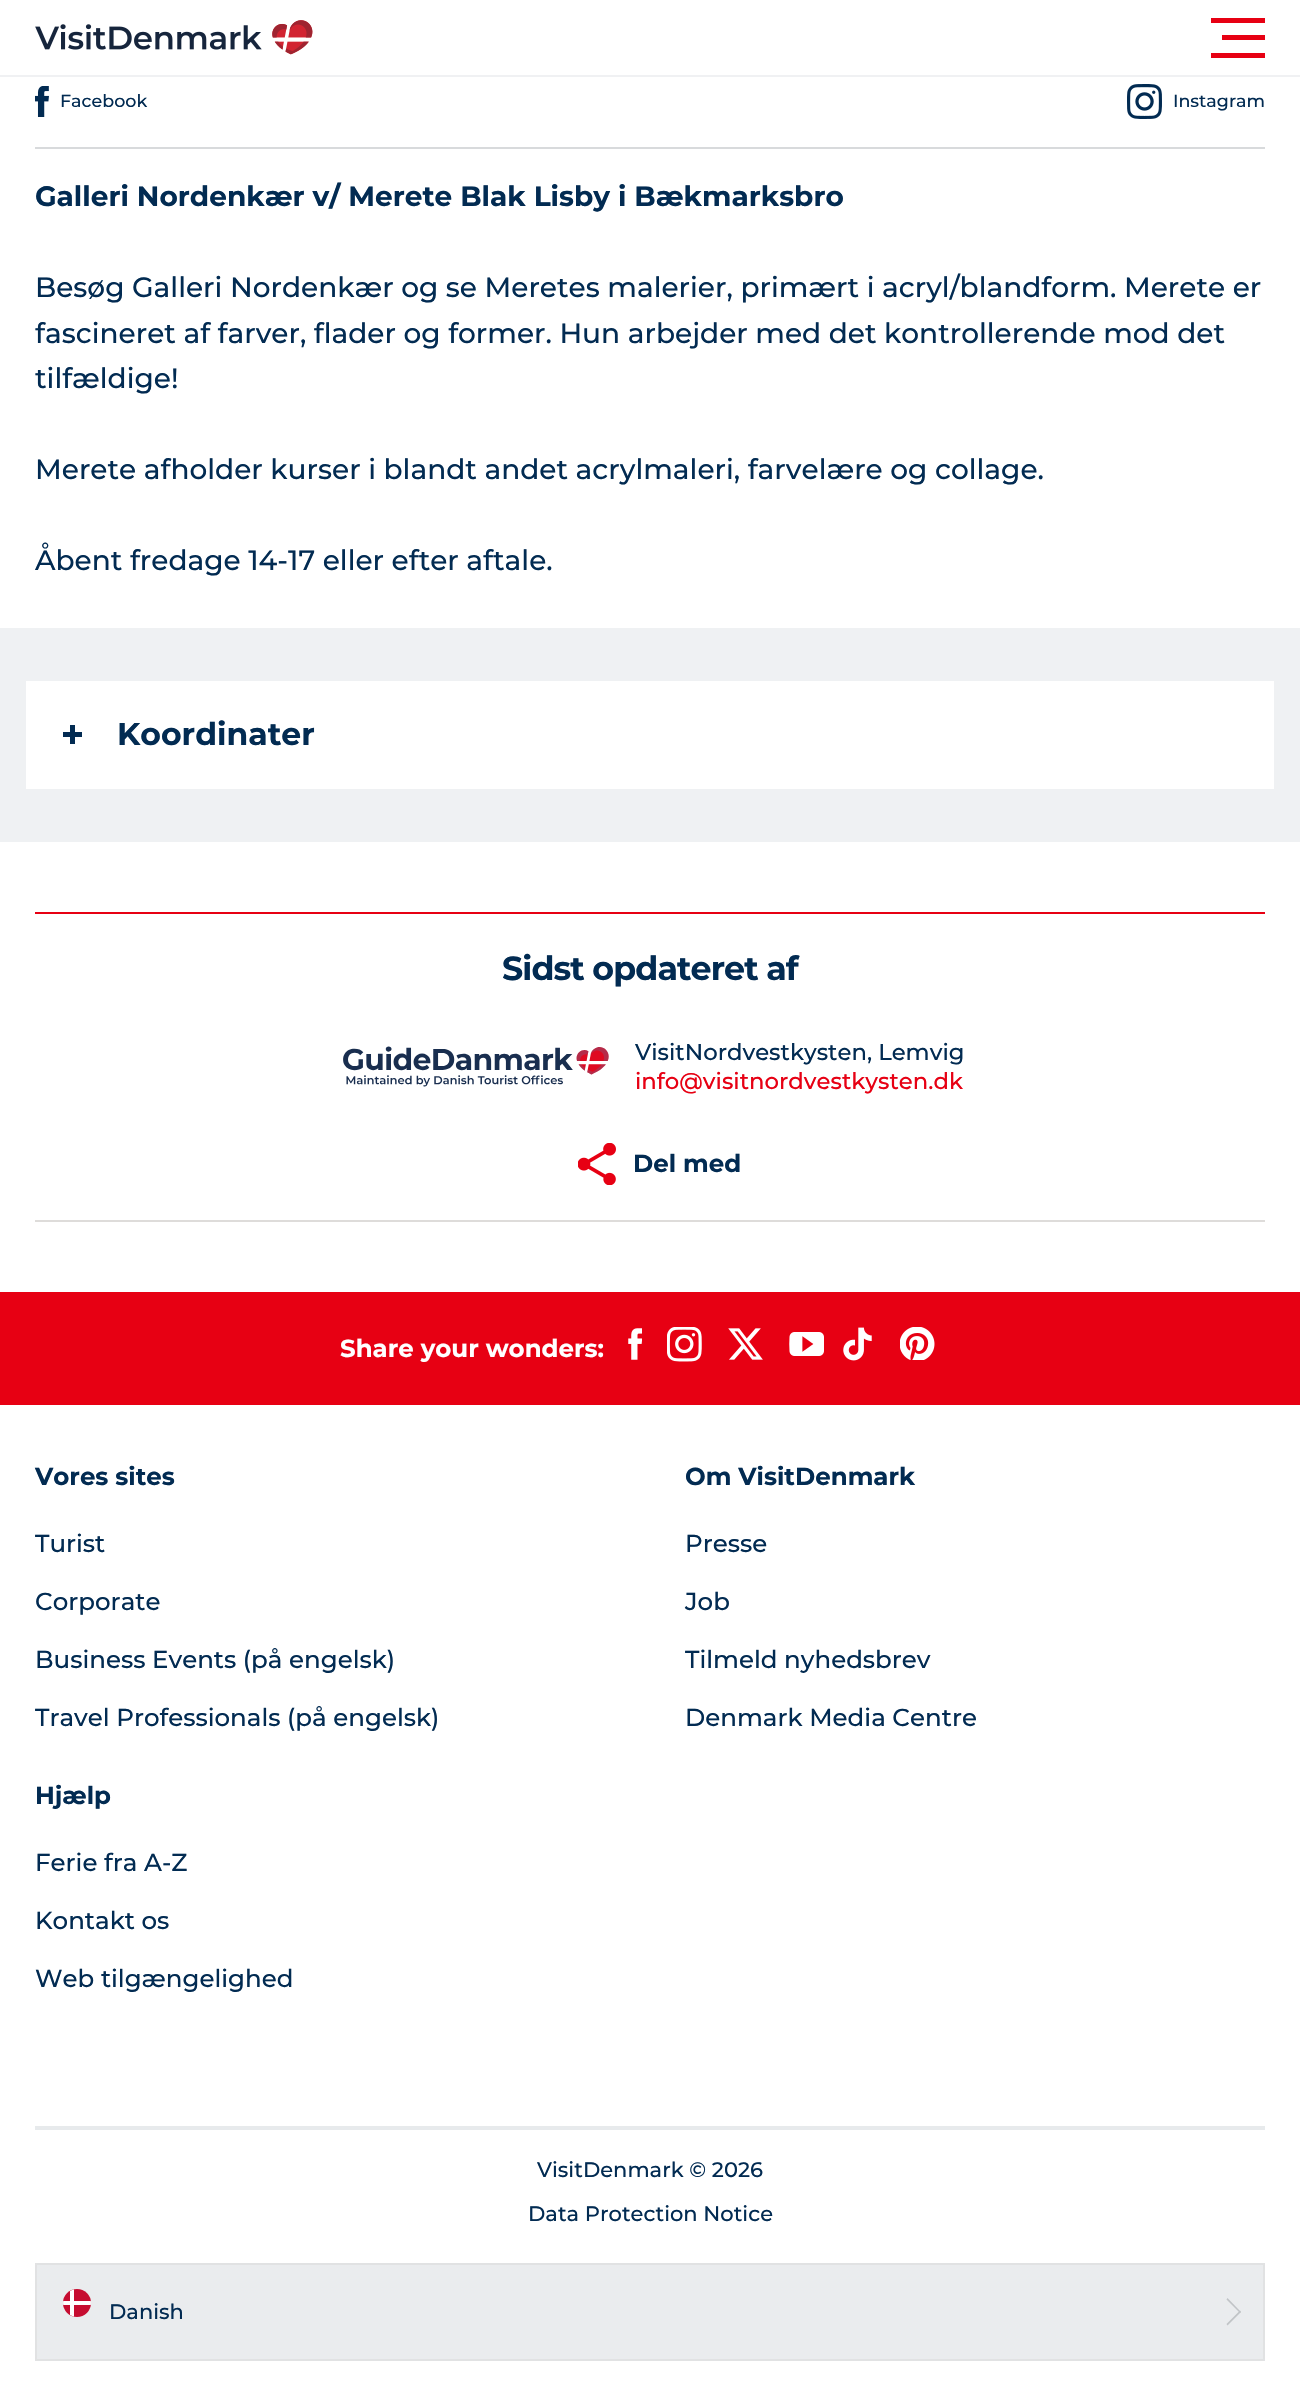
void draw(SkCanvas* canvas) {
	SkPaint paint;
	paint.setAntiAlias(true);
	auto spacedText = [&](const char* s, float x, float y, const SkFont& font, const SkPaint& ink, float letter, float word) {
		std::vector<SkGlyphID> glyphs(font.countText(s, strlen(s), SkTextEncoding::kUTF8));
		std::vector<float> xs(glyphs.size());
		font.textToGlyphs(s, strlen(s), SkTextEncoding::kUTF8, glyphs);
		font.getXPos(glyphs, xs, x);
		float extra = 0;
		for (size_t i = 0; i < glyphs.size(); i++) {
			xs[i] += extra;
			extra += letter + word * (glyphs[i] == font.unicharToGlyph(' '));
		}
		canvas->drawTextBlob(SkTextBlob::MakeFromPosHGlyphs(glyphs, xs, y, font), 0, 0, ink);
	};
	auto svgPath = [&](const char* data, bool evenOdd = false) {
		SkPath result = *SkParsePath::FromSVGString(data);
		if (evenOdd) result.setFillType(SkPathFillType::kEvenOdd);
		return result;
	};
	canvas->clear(0xffffffff);
	paint.setColor(0xfff0f1f3);
	canvas->drawRect(SkRect::MakeXYWH(0, 75, 1300, 2), paint);
	canvas->drawImageRect(SkImages::DeferredFromEncodedData(SkData::MakeFromFileName("img1.png")), SkRect::MakeXYWH(35, 20, 278, 35), SkSamplingOptions());
	paint.setColor(0xffe70013);
	canvas->drawRect(SkRect::MakeXYWH(1211, 18, 54, 5), paint);
	canvas->drawRect(SkRect::MakeXYWH(1222, 35, 43, 5), paint);
	canvas->drawRect(SkRect::MakeXYWH(1211, 53, 54, 5), paint);
	paint.setColor(0xffd8dadc);
	canvas->drawRect(SkRect::MakeXYWH(35, 147, 1230, 2), paint);
	canvas->drawImageRect(SkImages::DeferredFromEncodedData(SkData::MakeFromFileName("img2.png")), SkRect::MakeXYWH(35, 86, 14, 31), SkSamplingOptions());
	SkFont f1(fontMgr->matchFamilyStyle("Montserrat", SkFontStyle(500, SkFontStyle::kNormal_Width, SkFontStyle::kUpright_Slant)), 17.5);
	f1.setSubpixel(true);
	paint.setColor(0xff022b52);
	canvas->drawString("Facebook", 60, 107, f1, paint);
	canvas->drawImageRect(SkImages::DeferredFromEncodedData(SkData::MakeFromFileName("img3.png")), SkRect::MakeXYWH(1127, 84, 35, 35), SkSamplingOptions());
	canvas->drawString("Instagram", 1173, 107, f1, paint);
	SkFont f2(fontMgr->matchFamilyStyle("Montserrat", SkFontStyle::Bold()), 28);
	f2.setSubpixel(true);
	canvas->drawString("Galleri Nordenkær v/ Merete Blak Lisby i Bækmarksbro", 35, 206, f2, paint);
	SkFont f3(fontMgr->matchFamilyStyle("Montserrat", SkFontStyle(500, SkFontStyle::kNormal_Width, SkFontStyle::kUpright_Slant)), 28);
	f3.setSubpixel(true);
	canvas->drawString("Besøg Galleri Nordenkær og se Meretes malerier, primært i acryl/blandform. Merete er", 35, 297, f3, paint);
	canvas->drawString("fascineret af farver, flader og former. Hun arbejder med det kontrollerende mod det", 35, 343, f3, paint);
	canvas->drawString("tilfældige!", 35, 388, f3, paint);
	canvas->drawString("Merete afholder kurser i blandt andet acrylmaleri, farvelære og collage.", 35, 479, f3, paint);
	canvas->drawString("Åbent fredage 14-17 eller efter aftale.", 35, 570, f3, paint);
	paint.setColor(0xffeff1f3);
	canvas->drawRect(SkRect::MakeXYWH(0, 628, 1300, 214), paint);
	paint.setColor(0xffffffff);
	canvas->drawRect(SkRect::MakeXYWH(26, 681, 1248, 108), paint);
	paint.setColor(0xff022b52);
	canvas->drawRect(SkRect::MakeXYWH(63, 732, 19, 5), paint);
	canvas->drawRect(SkRect::MakeXYWH(70, 725, 5, 19), paint);
	SkFont f4(fontMgr->matchFamilyStyle("Montserrat", SkFontStyle::Bold()), 31.5);
	f4.setSubpixel(true);
	canvas->drawString("Koordinater", 117, 745, f4, paint);
	paint.setColor(0xffe70013);
	canvas->drawRect(SkRect::MakeXYWH(35, 912, 1230, 2), paint);
	paint.setColor(0xffdedcda);
	canvas->drawRect(SkRect::MakeXYWH(35, 1220, 1230, 2), paint);
	SkFont f5(fontMgr->matchFamilyStyle("Montserrat", SkFontStyle::Bold()), 33.25);
	f5.setSubpixel(true);
	paint.setColor(0xff022b52);
	spacedText("Sidst opdateret af", 502, 980, f5, paint, -0.9, 0);
	canvas->drawImageRect(SkImages::DeferredFromEncodedData(SkData::MakeFromFileName("img4.png")), SkRect::MakeXYWH(343, 1046, 266, 41), SkSamplingOptions());
	SkFont f6(fontMgr->matchFamilyStyle("Montserrat", SkFontStyle(500, SkFontStyle::kNormal_Width, SkFontStyle::kUpright_Slant)), 22.75);
	f6.setSubpixel(true);
	canvas->drawString("VisitNordvestkysten, Lemvig", 635, 1060, f6, paint);
	paint.setColor(0xffe70013);
	canvas->drawString("info@visitnordvestkysten.dk", 635, 1089, f6, paint);
	canvas->drawImageRect(SkImages::DeferredFromEncodedData(SkData::MakeFromFileName("img5.png")), SkRect::MakeXYWH(578, 1143, 38, 42), SkSamplingOptions());
	SkFont f7(fontMgr->matchFamilyStyle("Montserrat", SkFontStyle::Bold()), 24.5);
	f7.setSubpixel(true);
	paint.setColor(0xff022b52);
	canvas->drawString("Del med", 633, 1172, f7, paint);
	paint.setColor(0xffe70013);
	canvas->drawRect(SkRect::MakeXYWH(0, 1292, 1300, 113), paint);
	paint.setColor(0xffffffff);
	canvas->drawString("Share your wonders:", 340, 1357, f7, paint);
	canvas->drawImageRect(SkImages::DeferredFromEncodedData(SkData::MakeFromFileName("img6.png")), SkRect::MakeXYWH(628, 1328, 14, 32), SkSamplingOptions());
	canvas->drawImageRect(SkImages::DeferredFromEncodedData(SkData::MakeFromFileName("img7.png")), SkRect::MakeXYWH(667, 1327, 35, 35), SkSamplingOptions());
	canvas->drawImageRect(SkImages::DeferredFromEncodedData(SkData::MakeFromFileName("img8.png")), SkRect::MakeXYWH(728, 1328, 35, 32), SkSamplingOptions());
	canvas->drawImageRect(SkImages::DeferredFromEncodedData(SkData::MakeFromFileName("img9.png")), SkRect::MakeXYWH(789, 1332, 35, 24), SkSamplingOptions());
	canvas->drawImageRect(SkImages::DeferredFromEncodedData(SkData::MakeFromFileName("img10.png")), SkRect::MakeXYWH(843, 1327, 29, 34), SkSamplingOptions());
	canvas->drawImageRect(SkImages::DeferredFromEncodedData(SkData::MakeFromFileName("img11.png")), SkRect::MakeXYWH(900, 1327, 35, 33), SkSamplingOptions());
	paint.setColor(0xff022b52);
	canvas->drawString("Vores sites", 35, 1485, f7, paint);
	SkFont f8(fontMgr->matchFamilyStyle("Montserrat", SkFontStyle(500, SkFontStyle::kNormal_Width, SkFontStyle::kUpright_Slant)), 24.5);
	f8.setSubpixel(true);
	canvas->drawString("Turist", 35, 1552, f8, paint);
	canvas->drawString("Corporate", 35, 1610, f8, paint);
	canvas->drawString("Business Events (på engelsk)", 35, 1668, f8, paint);
	canvas->drawString("Travel Professionals (på engelsk)", 35, 1726, f8, paint);
	canvas->drawString("Om VisitDenmark", 685, 1485, f7, paint);
	canvas->drawString("Presse", 685, 1552, f8, paint);
	canvas->drawString("Job", 685, 1610, f8, paint);
	canvas->drawString("Tilmeld nyhedsbrev", 685, 1668, f8, paint);
	canvas->drawString("Denmark Media Centre", 685, 1726, f8, paint);
	canvas->drawString("Hjælp", 35, 1804, f7, paint);
	canvas->drawString("Ferie fra A-Z", 35, 1871, f8, paint);
	canvas->drawString("Kontakt os", 35, 1929, f8, paint);
	canvas->drawString("Web tilgængelighed", 35, 1987, f8, paint);
	paint.setColor(0xffe7eaec);
	canvas->drawRect(SkRect::MakeXYWH(35, 2126, 1230, 4), paint);
	SkFont f9(fontMgr->matchFamilyStyle("Montserrat", SkFontStyle(500, SkFontStyle::kNormal_Width, SkFontStyle::kUpright_Slant)), 21);
	f9.setSubpixel(true);
	paint.setColor(0xff022b52);
	canvas->drawString("VisitDenmark © 2026", 537, 2177, f9, paint);
	canvas->drawString("Data Protection Notice", 528, 2221, f9, paint);
	paint.setColor(0xffeaecee);
	canvas->drawRect(SkRect::MakeXYWH(36, 2264, 1228, 96), paint);
	paint.setStroke(true);
	paint.setStrokeWidth(2);
	paint.setColor(0xffe1e2e3);
	canvas->drawRect(SkRect::MakeXYWH(36, 2264, 1228, 96), paint);
	paint.setStroke(false);
	paint.setColor(0xffc60c30);
	canvas->drawCircle(77, 2303, 14, paint);
	canvas->save();
	canvas->clipPath(svgPath("M77 2289C84.5 2289 91 2295.5 91 2303C91 2310.5 84.5 2317 77 2317C69.5 2317 63 2310.5 63 2303C63 2295.5 69.5 2289 77 2289Z"), true);
	paint.setColor(0xffffffff);
	canvas->drawRect(SkRect::MakeXYWH(70, 2289, 4, 28), paint);
	canvas->drawRect(SkRect::MakeXYWH(63, 2301, 28, 4), paint);
	canvas->restore();
	paint.setColor(0xff022b52);
	canvas->drawString("Danish", 109, 2319, f9, paint);
	paint.setColor(0xffc1c4c7);
	canvas->drawPath(svgPath("M1227.5 2298L1241 2312L1240 2313L1226.5 2299.5Z"), paint);
	canvas->drawPath(svgPath("M1240 2310.5L1241 2312L1227.5 2325.5L1226.5 2324Z"), paint);
}
